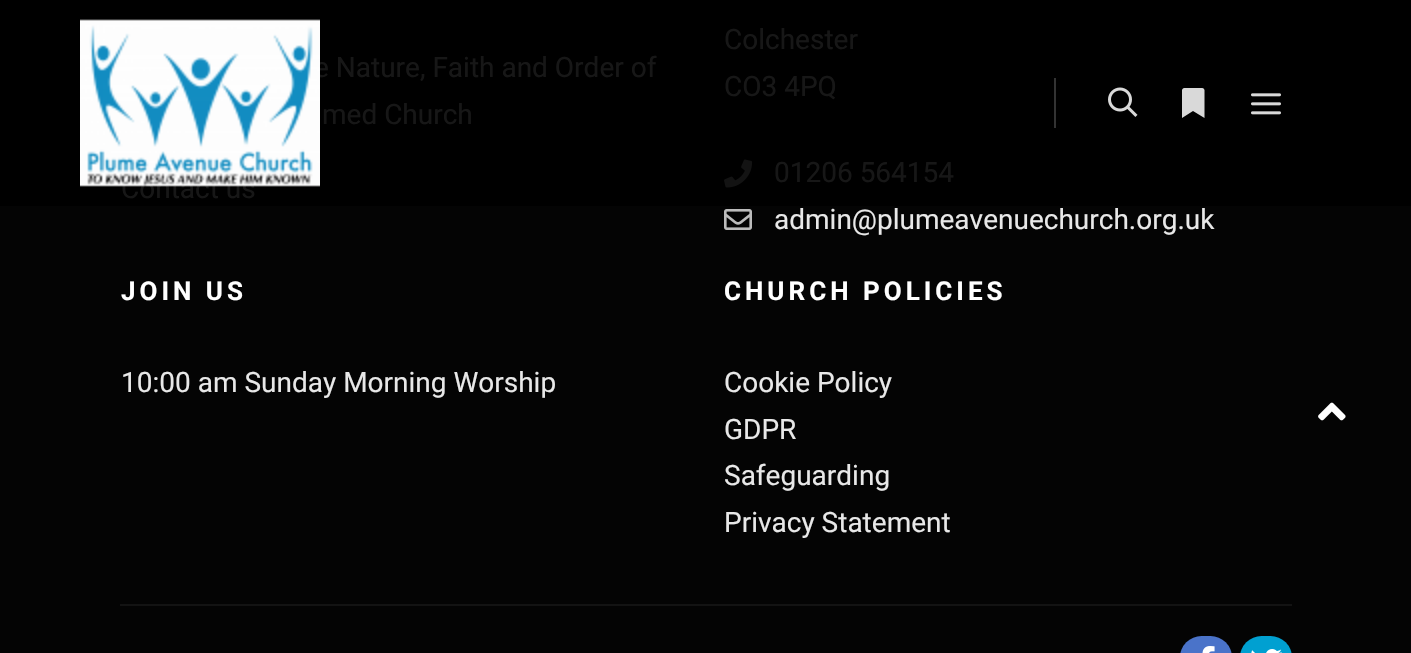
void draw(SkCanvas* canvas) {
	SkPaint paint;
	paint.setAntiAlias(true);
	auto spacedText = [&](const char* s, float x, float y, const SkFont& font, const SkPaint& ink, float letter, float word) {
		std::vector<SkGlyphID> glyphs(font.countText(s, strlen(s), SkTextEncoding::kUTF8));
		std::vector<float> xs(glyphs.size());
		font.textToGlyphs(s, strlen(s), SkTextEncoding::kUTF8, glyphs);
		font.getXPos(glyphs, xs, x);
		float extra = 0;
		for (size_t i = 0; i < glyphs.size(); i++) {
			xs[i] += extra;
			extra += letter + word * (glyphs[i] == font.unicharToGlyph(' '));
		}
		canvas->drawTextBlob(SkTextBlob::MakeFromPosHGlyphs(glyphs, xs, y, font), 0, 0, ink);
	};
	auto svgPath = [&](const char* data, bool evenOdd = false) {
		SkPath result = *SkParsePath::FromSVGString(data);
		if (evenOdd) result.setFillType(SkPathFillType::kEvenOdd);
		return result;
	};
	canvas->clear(0xff040404);
	paint.setColor(0xff000000);
	canvas->drawRect(SkRect::MakeXYWH(0, 0, 1411, 206), paint);
	SkFont f1(fontMgr->matchFamilyStyle("Roboto", SkFontStyle::Normal()), 28);
	f1.setSubpixel(true);
	paint.setColor(0xff171717);
	canvas->drawString("e Nature, Faith and Order of", 314, 77, f1, paint);
	canvas->drawString("Contact us", 121, 198, f1, paint);
	canvas->drawImageRect(SkImages::DeferredFromEncodedData(SkData::MakeFromFileName("img1.png")), SkRect::MakeXYWH(80, 19, 240, 168), SkSamplingOptions());
	paint.setColor(0xff333333);
	canvas->drawRect(SkRect::MakeXYWH(1054, 78, 2, 50), paint);
	canvas->drawImageRect(SkImages::DeferredFromEncodedData(SkData::MakeFromFileName("img2.png")), SkRect::MakeXYWH(1108, 87, 30, 30), SkSamplingOptions());
	paint.setColor(0xffd9d9d9);
	canvas->drawPath(svgPath("M1182 118V90C1182.5 87.5 1185.5 88 1187.5 88H1199C1201 88 1204 87.5 1204.5 90V118L1193 111Z"), paint);
	canvas->drawImageRect(SkImages::DeferredFromEncodedData(SkData::MakeFromFileName("img3.png")), SkRect::MakeXYWH(1251, 93, 30, 22), SkSamplingOptions());
	paint.setColor(0xff171717);
	canvas->drawString("med Church", 322, 124, f1, paint);
	canvas->drawString("Colchester", 724, 49, f1, paint);
	canvas->drawString("CO3 4PQ", 724, 96, f1, paint);
	canvas->drawImageRect(SkImages::DeferredFromEncodedData(SkData::MakeFromFileName("img4.png")), SkRect::MakeXYWH(724, 159, 29, 29), SkSamplingOptions());
	canvas->drawString("01206 564154", 774, 182, f1, paint);
	canvas->drawImageRect(SkImages::DeferredFromEncodedData(SkData::MakeFromFileName("img5.png")), SkRect::MakeXYWH(724, 209, 28, 21), SkSamplingOptions());
	paint.setColor(0xffe8e8e8);
	canvas->drawString("admin@plumeavenuechurch.org.uk", 774, 229, f1, paint);
	SkFont f2(fontMgr->matchFamilyStyle("Roboto", SkFontStyle::Bold()), 26);
	f2.setSubpixel(true);
	paint.setColor(0xffffffff);
	spacedText("JOIN US", 121, 300, f2, paint, 4, 0);
	paint.setColor(0xffe8e8e8);
	canvas->drawString("10:00 am Sunday Morning Worship", 121, 392, f1, paint);
	paint.setColor(0xffffffff);
	spacedText("CHURCH POLICIES", 724, 300, f2, paint, 4, 0);
	paint.setColor(0xffe8e8e8);
	canvas->drawString("Cookie Policy", 724, 392, f1, paint);
	canvas->drawString("GDPR", 724, 439, f1, paint);
	canvas->drawString("Safeguarding", 724, 485, f1, paint);
	canvas->drawString("Privacy Statement", 724, 532, f1, paint);
	paint.setColor(0xff131313);
	canvas->drawRect(SkRect::MakeXYWH(120, 604, 1172, 2), paint);
	paint.setColor(0xff4a73c9);
	canvas->drawRoundRect(SkRect::MakeXYWH(1180, 636, 52, 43), 26, 26, paint);
	canvas->drawImageRect(SkImages::DeferredFromEncodedData(SkData::MakeFromFileName("img6.png")), SkRect::MakeXYWH(1202, 646, 13, 7), SkSamplingOptions());
	paint.setColor(0xff00a0d1);
	canvas->drawRoundRect(SkRect::MakeXYWH(1240, 636, 52, 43), 26, 26, paint);
	canvas->drawImageRect(SkImages::DeferredFromEncodedData(SkData::MakeFromFileName("img7.png")), SkRect::MakeXYWH(1251, 649, 31, 4), SkSamplingOptions());
	canvas->drawImageRect(SkImages::DeferredFromEncodedData(SkData::MakeFromFileName("img8.png")), SkRect::MakeXYWH(1318, 402, 28, 19), SkSamplingOptions());
}
